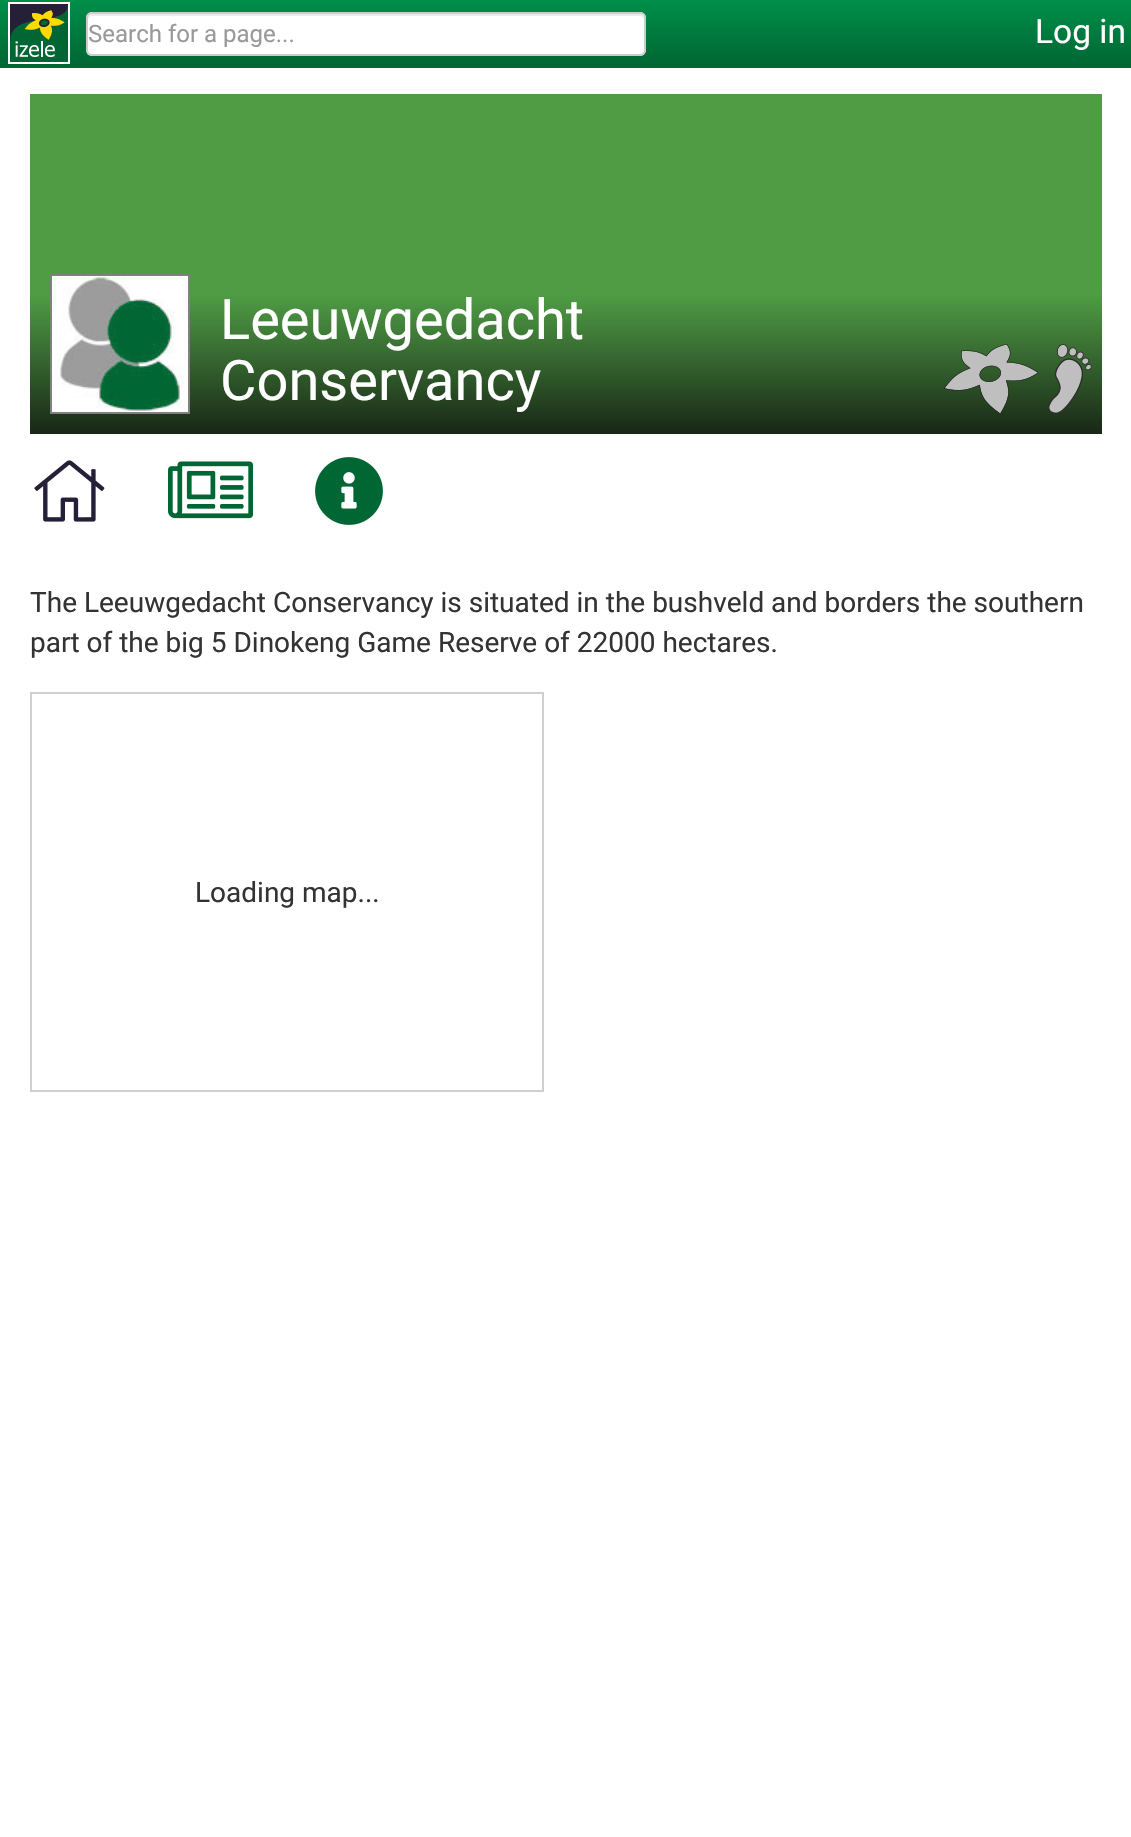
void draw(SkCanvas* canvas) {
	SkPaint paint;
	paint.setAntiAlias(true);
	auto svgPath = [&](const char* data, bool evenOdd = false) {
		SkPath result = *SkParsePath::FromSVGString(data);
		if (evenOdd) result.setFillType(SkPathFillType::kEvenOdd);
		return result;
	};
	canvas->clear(0xffffffff);
	{
		const SkColor colors[] = {0xff008f49, 0xff006634};
		const float stops[] = {0, 1};
		const SkPoint ends[] = {{566, 0}, {566, 66}};
		paint.setShader(SkGradientShader::MakeLinear(ends, colors, stops, 2, SkTileMode::kClamp));
		paint.setAlpha(255);
	}
	canvas->drawRect(SkRect::MakeXYWH(0, 0, 1131, 66), paint);
	paint.setShader(nullptr);
	paint.setColor(0xff006634);
	canvas->drawRect(SkRect::MakeXYWH(0, 66, 1131, 2), paint);
	paint.setStroke(true);
	paint.setStrokeWidth(2);
	paint.setColor(0xffffffff);
	canvas->drawRect(SkRect::MakeXYWH(9, 3, 60, 60), paint);
	canvas->drawImageRect(SkImages::DeferredFromEncodedData(SkData::MakeFromFileName("img1.png")), SkRect::MakeXYWH(10, 4, 58, 58), SkSamplingOptions());
	paint.setStroke(false);
	canvas->drawRoundRect(SkRect::MakeXYWH(86, 12, 560, 44), 6, 6, paint);
	paint.setColor(0xffececec);
	canvas->drawPath(svgPath("M92 16H640C642 16 644 18 644 20V18C644 16 642 14 640 14H92C90 14 88 16 88 18V20C88 18 90 16 92 16Z"), paint);
	paint.setStroke(true);
	paint.setColor(0xffcccccc);
	canvas->drawRoundRect(SkRect::MakeXYWH(87, 13, 558, 42), 5, 5, paint);
	SkFont f1(fontMgr->matchFamilyStyle("Roboto", SkFontStyle::Normal()), 24);
	f1.setSubpixel(true);
	paint.setStroke(false);
	paint.setColor(0xff999999);
	canvas->drawString("Search for a page...", 88, 42, f1, paint);
	SkFont f2(fontMgr->matchFamilyStyle("Roboto", SkFontStyle::Normal()), 33.5);
	f2.setSubpixel(true);
	paint.setColor(0xffffffff);
	canvas->drawString("Log in", 1035, 43, f2, paint);
	{
		const SkColor colors[] = {0xff4f9c45, 0xff4f9c45, 0xff182716};
		const float stops[] = {0, 0.59, 1};
		const SkPoint ends[] = {{566, 94}, {566, 434}};
		paint.setShader(SkGradientShader::MakeLinear(ends, colors, stops, 3, SkTileMode::kClamp));
		paint.setAlpha(255);
	}
	canvas->drawRect(SkRect::MakeXYWH(30, 94, 1072, 340), paint);
	paint.setShader(nullptr);
	paint.setColor(0xffffffff);
	canvas->drawRect(SkRect::MakeXYWH(185, 276, 3, 136), paint);
	paint.setStroke(true);
	paint.setColor(0xff808080);
	canvas->drawRect(SkRect::MakeXYWH(51, 275, 138, 138), paint);
	canvas->drawImageRect(SkImages::DeferredFromEncodedData(SkData::MakeFromFileName("img2.png")), SkRect::MakeXYWH(52, 276, 133, 136), SkSamplingOptions());
	SkFont f3(fontMgr->matchFamilyStyle("Roboto", SkFontStyle::Normal()), 56);
	f3.setSubpixel(true);
	paint.setStroke(false);
	paint.setColor(0xffffffff);
	canvas->drawString("Leeuwgedacht", 220, 339, f3, paint);
	canvas->drawString("Conservancy", 220, 400, f3, paint);
	canvas->drawImageRect(SkImages::DeferredFromEncodedData(SkData::MakeFromFileName("img3.png")), SkRect::MakeXYWH(944, 344, 94, 70), SkSamplingOptions());
	canvas->drawImageRect(SkImages::DeferredFromEncodedData(SkData::MakeFromFileName("img4.png")), SkRect::MakeXYWH(1048, 344, 44, 70), SkSamplingOptions());
	canvas->drawImageRect(SkImages::DeferredFromEncodedData(SkData::MakeFromFileName("img5.png")), SkRect::MakeXYWH(34, 460, 71, 62), SkSamplingOptions());
	canvas->drawImageRect(SkImages::DeferredFromEncodedData(SkData::MakeFromFileName("img6.png")), SkRect::MakeXYWH(168, 461, 86, 58), SkSamplingOptions());
	canvas->drawImageRect(SkImages::DeferredFromEncodedData(SkData::MakeFromFileName("img7.png")), SkRect::MakeXYWH(315, 457, 68, 68), SkSamplingOptions());
	SkFont f4(fontMgr->matchFamilyStyle("Roboto", SkFontStyle::Normal()), 28);
	f4.setSubpixel(true);
	paint.setColor(0xff333333);
	canvas->drawString("The Leeuwgedacht Conservancy is situated in the bushveld and borders the southern", 30, 612, f4, paint);
	canvas->drawString("part of the big 5 Dinokeng Game Reserve of 22000 hectares.", 30, 652, f4, paint);
	paint.setStroke(true);
	paint.setColor(0xffd0d0d0);
	canvas->drawRect(SkRect::MakeXYWH(31, 693, 512, 398), paint);
	paint.setStroke(false);
	paint.setColor(0xff333333);
	canvas->drawString("Loading map...", 195, 902, f4, paint);
}
